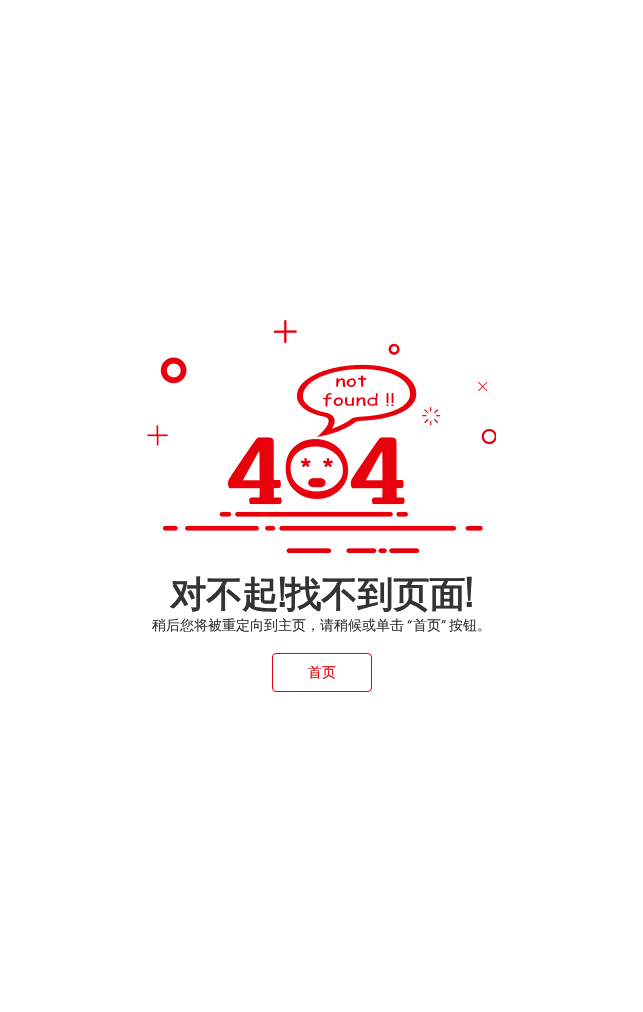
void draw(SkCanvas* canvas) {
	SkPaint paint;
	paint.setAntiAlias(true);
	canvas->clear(0xffffffff);
	canvas->drawImageRect(SkImages::DeferredFromEncodedData(SkData::MakeFromFileName("img1.png")), SkRect::MakeXYWH(147, 320, 349, 233), SkSamplingOptions());
	SkFont f1(fontMgr->matchFamilyStyle("WenQuanYi Zen Hei", SkFontStyle::Bold()), 36);
	f1.setSubpixel(true);
	paint.setColor(0xff333333);
	canvas->drawString("对不起", 170, 607, f1, paint);
	SkFont f2(fontMgr->matchFamilyStyle("Oswald", SkFontStyle::Bold()), 36);
	f2.setSubpixel(true);
	canvas->drawString("!", 278, 607, f2, paint);
	canvas->drawString("找不到页面", 285, 607, f1, paint);
	canvas->drawString("!", 465, 607, f2, paint);
	SkFont f3(fontMgr->matchFamilyStyle("WenQuanYi Zen Hei", SkFontStyle(500, SkFontStyle::kNormal_Width, SkFontStyle::kUpright_Slant)), 14);
	f3.setSubpixel(true);
	canvas->drawString("稍后您将被重定向到主页，请稍候或单击", 152, 630, f3, paint);
	SkFont f4(fontMgr->matchFamilyStyle("Questrial", SkFontStyle::Normal()), 14);
	f4.setSubpixel(true);
	canvas->drawString("“", 407, 630, f4, paint);
	canvas->drawString("首页", 413, 630, f3, paint);
	canvas->drawString("”", 441, 630, f4, paint);
	canvas->drawString("按钮。", 449, 630, f3, paint);
	paint.setStroke(true);
	paint.setStrokeWidth(1);
	paint.setColor(0xffe8000c);
	canvas->drawRoundRect(SkRect::MakeXYWH(272.5, 653.5, 99, 38), 3.5, 3.5, paint);
	paint.setStroke(false);
	canvas->drawString("首页", 308, 677, f3, paint);
}
